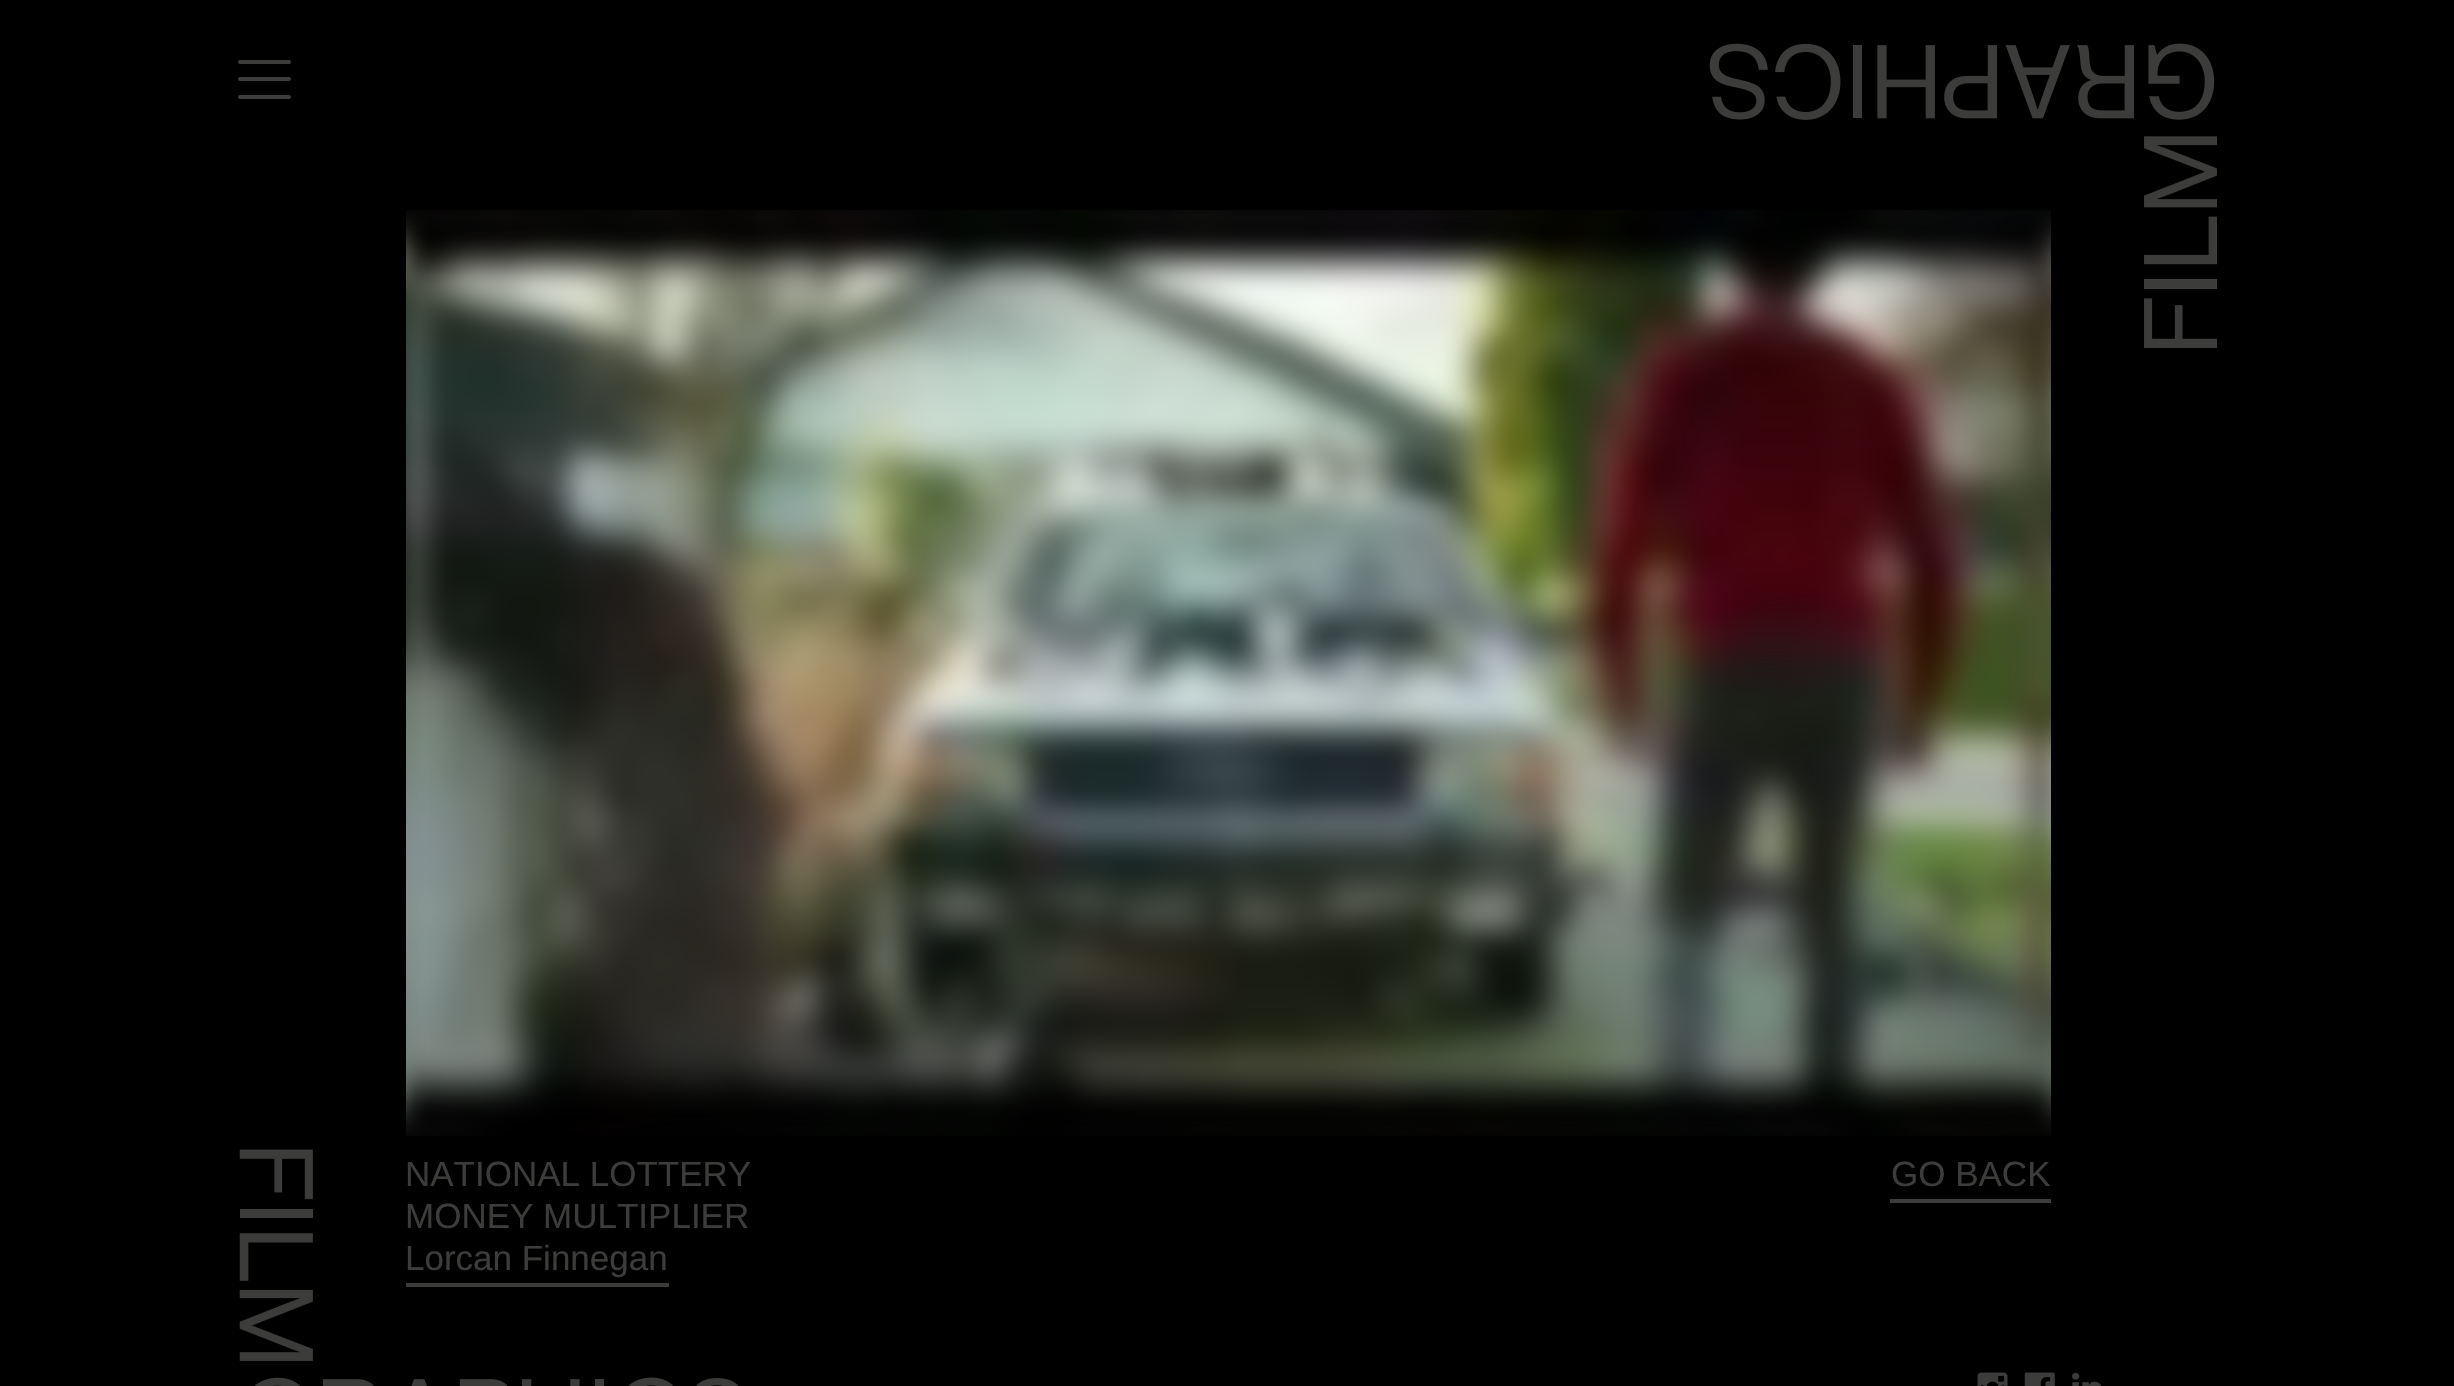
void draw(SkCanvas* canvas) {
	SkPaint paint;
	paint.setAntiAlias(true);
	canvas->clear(0xff000000);
	paint.setColor(0xff3c3c3b);
	canvas->drawRoundRect(SkRect::MakeXYWH(238, 77, 53, 4), 2, 2, paint);
	canvas->drawRoundRect(SkRect::MakeXYWH(238, 60, 53, 4), 2, 2, paint);
	canvas->drawRoundRect(SkRect::MakeXYWH(238, 95, 53, 4), 2, 2, paint);
	canvas->drawImageRect(SkImages::DeferredFromEncodedData(SkData::MakeFromFileName("img6.png")), SkRect::MakeXYWH(406, 210, 1645, 926), SkSamplingOptions());
	canvas->drawImageRect(SkImages::DeferredFromEncodedData(SkData::MakeFromFileName("img1.png")), SkRect::MakeXYWH(1709, 43, 508, 305), SkSamplingOptions());
	canvas->drawImageRect(SkImages::DeferredFromEncodedData(SkData::MakeFromFileName("img2.png")), SkRect::MakeXYWH(239, 1149, 500, 237), SkSamplingOptions());
	canvas->drawImageRect(SkImages::DeferredFromEncodedData(SkData::MakeFromFileName("img3.png")), SkRect::MakeXYWH(1977, 1372, 31, 14), SkSamplingOptions());
	canvas->drawImageRect(SkImages::DeferredFromEncodedData(SkData::MakeFromFileName("img4.png")), SkRect::MakeXYWH(2024, 1372, 31, 14), SkSamplingOptions());
	canvas->drawImageRect(SkImages::DeferredFromEncodedData(SkData::MakeFromFileName("img5.png")), SkRect::MakeXYWH(2072, 1373, 29, 13), SkSamplingOptions());
	SkFont f1(fontMgr->matchFamilyStyle("Liberation Sans", SkFontStyle::Normal()), 35);
	f1.setSubpixel(true);
	canvas->drawString("NATIONAL LOTTERY", 405, 1186, f1, paint);
	canvas->drawString("MONEY MULTIPLIER", 405, 1228, f1, paint);
	canvas->drawString("Lorcan Finnegan", 405, 1270, f1, paint);
	canvas->drawRect(SkRect::MakeXYWH(406, 1283, 263, 4), paint);
	canvas->drawString("GO BACK", 1891, 1186, f1, paint);
	canvas->drawRect(SkRect::MakeXYWH(1890, 1199, 161, 4), paint);
}
